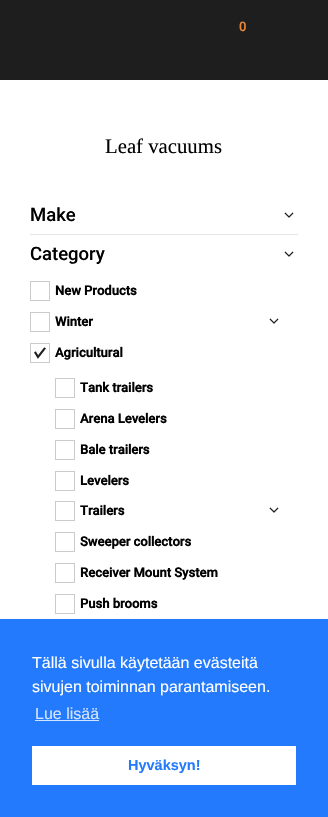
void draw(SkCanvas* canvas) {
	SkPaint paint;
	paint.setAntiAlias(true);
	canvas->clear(0xff1e1e1e);
	SkFont f1(fontMgr->matchFamilyStyle("Roboto", SkFontStyle(500, SkFontStyle::kNormal_Width, SkFontStyle::kUpright_Slant)), 13);
	f1.setSubpixel(true);
	paint.setColor(0xffed893b);
	canvas->drawString("0", 239, 31, f1, paint);
	paint.setColor(0xffffffff);
	canvas->drawRect(SkRect::MakeXYWH(0, 80, 328, 539), paint);
	SkFont f2(fontMgr->matchFamilyStyle("Liberation Serif", SkFontStyle::Normal()), 20.75);
	f2.setSubpixel(true);
	paint.setColor(0xff010101);
	canvas->drawString("Leaf vacuums", 105, 153, f2, paint);
	canvas->drawImageRect(SkImages::DeferredFromEncodedData(SkData::MakeFromFileName("img1.png")), SkRect::MakeXYWH(284, 212, 10, 6), SkSamplingOptions());
	SkFont f3(fontMgr->matchFamilyStyle("Roboto", SkFontStyle(500, SkFontStyle::kNormal_Width, SkFontStyle::kUpright_Slant)), 18.5);
	f3.setSubpixel(true);
	canvas->drawString("Make", 30, 221, f3, paint);
	paint.setColor(0xffe5e5e5);
	canvas->drawRect(SkRect::MakeXYWH(30, 234, 268, 1), paint);
	canvas->drawImageRect(SkImages::DeferredFromEncodedData(SkData::MakeFromFileName("img1.png")), SkRect::MakeXYWH(284, 251, 10, 6), SkSamplingOptions());
	paint.setColor(0xff010101);
	canvas->drawString("Category", 30, 260, f3, paint);
	paint.setStroke(true);
	paint.setStrokeWidth(1);
	paint.setColor(0xffcbcbcb);
	canvas->drawRect(SkRect::MakeXYWH(30.5, 281.5, 19, 19), paint);
	SkFont f4(fontMgr->matchFamilyStyle("Roboto", SkFontStyle::Bold()), 13);
	f4.setSubpixel(true);
	paint.setStroke(false);
	paint.setColor(0xff010101);
	canvas->drawString("New Products", 55, 295, f4, paint);
	paint.setStroke(true);
	paint.setColor(0xffcbcbcb);
	canvas->drawRect(SkRect::MakeXYWH(30.5, 312.5, 19, 19), paint);
	paint.setStroke(false);
	paint.setColor(0xff010101);
	canvas->drawString("Winter", 55, 326, f4, paint);
	canvas->drawImageRect(SkImages::DeferredFromEncodedData(SkData::MakeFromFileName("img1.png")), SkRect::MakeXYWH(269, 318, 10, 6), SkSamplingOptions());
	canvas->drawImageRect(SkImages::DeferredFromEncodedData(SkData::MakeFromFileName("img2.png")), SkRect::MakeXYWH(34, 347, 12, 12), SkSamplingOptions());
	paint.setStroke(true);
	paint.setColor(0xffcbcbcb);
	canvas->drawRect(SkRect::MakeXYWH(30.5, 343.5, 19, 19), paint);
	paint.setStroke(false);
	paint.setColor(0xff010101);
	canvas->drawString("Agricultural", 55, 357, f4, paint);
	paint.setStroke(true);
	paint.setColor(0xffcbcbcb);
	canvas->drawRect(SkRect::MakeXYWH(55.5, 378.5, 19, 19), paint);
	paint.setStroke(false);
	paint.setColor(0xff010101);
	canvas->drawString("Tank trailers", 80, 392, f4, paint);
	paint.setStroke(true);
	paint.setColor(0xffcbcbcb);
	canvas->drawRect(SkRect::MakeXYWH(55.5, 409.5, 19, 19), paint);
	paint.setStroke(false);
	paint.setColor(0xff010101);
	canvas->drawString("Arena Levelers", 80, 423, f4, paint);
	paint.setStroke(true);
	paint.setColor(0xffcbcbcb);
	canvas->drawRect(SkRect::MakeXYWH(55.5, 440.5, 19, 19), paint);
	paint.setStroke(false);
	paint.setColor(0xff010101);
	canvas->drawString("Bale trailers", 80, 454, f4, paint);
	paint.setStroke(true);
	paint.setColor(0xffcbcbcb);
	canvas->drawRect(SkRect::MakeXYWH(55.5, 471.5, 19, 19), paint);
	paint.setStroke(false);
	paint.setColor(0xff010101);
	canvas->drawString("Levelers", 80, 485, f4, paint);
	paint.setStroke(true);
	paint.setColor(0xffcbcbcb);
	canvas->drawRect(SkRect::MakeXYWH(55.5, 501.5, 19, 19), paint);
	paint.setStroke(false);
	paint.setColor(0xff010101);
	canvas->drawString("Trailers", 80, 515, f4, paint);
	canvas->drawImageRect(SkImages::DeferredFromEncodedData(SkData::MakeFromFileName("img1.png")), SkRect::MakeXYWH(269, 507, 10, 6), SkSamplingOptions());
	paint.setStroke(true);
	paint.setColor(0xffcbcbcb);
	canvas->drawRect(SkRect::MakeXYWH(55.5, 532.5, 19, 19), paint);
	paint.setStroke(false);
	paint.setColor(0xff010101);
	canvas->drawString("Sweeper collectors", 80, 546, f4, paint);
	paint.setStroke(true);
	paint.setColor(0xffcbcbcb);
	canvas->drawRect(SkRect::MakeXYWH(55.5, 563.5, 19, 19), paint);
	paint.setStroke(false);
	paint.setColor(0xff010101);
	canvas->drawString("Receiver Mount System", 80, 577, f4, paint);
	paint.setStroke(true);
	paint.setColor(0xffcbcbcb);
	canvas->drawRect(SkRect::MakeXYWH(55.5, 594.5, 19, 19), paint);
	paint.setStroke(false);
	paint.setColor(0xff010101);
	canvas->drawString("Push brooms", 80, 608, f4, paint);
	paint.setColor(0xff237afc);
	canvas->drawRect(SkRect::MakeXYWH(0, 619, 328, 198), paint);
	SkFont f5(fontMgr->matchFamilyStyle("Liberation Sans", SkFontStyle::Normal()), 16);
	f5.setSubpixel(true);
	paint.setColor(0xffffffff);
	canvas->drawString("Tällä sivulla käytetään evästeitä", 32, 668, f5, paint);
	canvas->drawString("sivujen toiminnan parantamiseen.", 32, 692, f5, paint);
	paint.setColor(0xffd3e4fe);
	canvas->drawString("Lue lisää", 35, 719, f5, paint);
	canvas->drawRect(SkRect::MakeXYWH(35, 720, 64, 1), paint);
	paint.setColor(0xffffffff);
	canvas->drawRect(SkRect::MakeXYWH(32, 746, 264, 39), paint);
	SkFont f6(fontMgr->matchFamilyStyle("Liberation Sans", SkFontStyle::Bold()), 14.5);
	f6.setSubpixel(true);
	paint.setColor(0xff237afc);
	canvas->drawString("Hyväksyn!", 128, 770, f6, paint);
}
